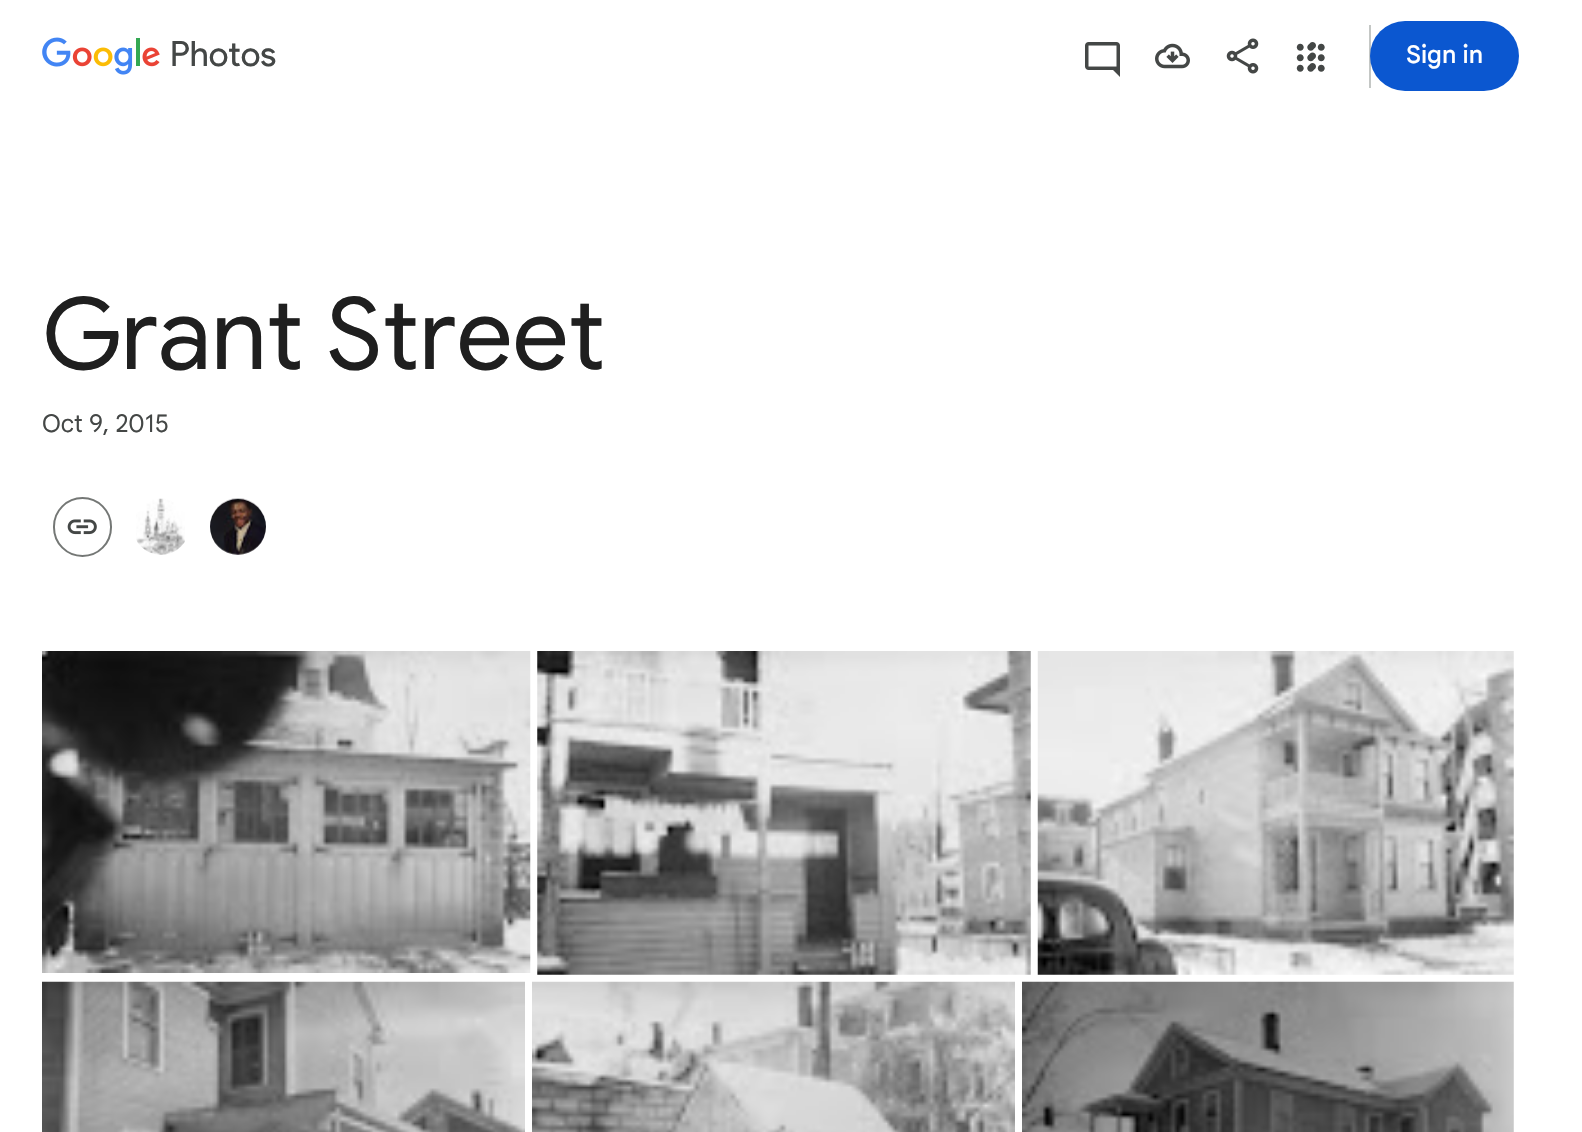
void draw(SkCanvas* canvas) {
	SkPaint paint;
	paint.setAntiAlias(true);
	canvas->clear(0xffffffff);
	canvas->drawImageRect(SkImages::DeferredFromEncodedData(SkData::MakeFromFileName("img1.png")), SkRect::MakeXYWH(42, 37, 118, 38), SkSamplingOptions());
	SkFont f1(fontMgr->matchFamilyStyle("Product Sans", SkFontStyle::Normal()), 35);
	f1.setSubpixel(true);
	paint.setColor(0xff444746);
	canvas->drawString("Photos", 170, 66, f1, paint);
	canvas->drawImageRect(SkImages::DeferredFromEncodedData(SkData::MakeFromFileName("img2.png")), SkRect::MakeXYWH(1085, 42, 35, 35), SkSamplingOptions());
	canvas->drawImageRect(SkImages::DeferredFromEncodedData(SkData::MakeFromFileName("img3.png")), SkRect::MakeXYWH(1155, 43, 35, 26), SkSamplingOptions());
	canvas->drawImageRect(SkImages::DeferredFromEncodedData(SkData::MakeFromFileName("img4.png")), SkRect::MakeXYWH(1226, 38, 33, 36), SkSamplingOptions());
	canvas->drawImageRect(SkImages::DeferredFromEncodedData(SkData::MakeFromFileName("img5.png")), SkRect::MakeXYWH(1309, 42, 7, 28), SkSamplingOptions());
	paint.setColor(0xffc4c7c5);
	canvas->drawRect(SkRect::MakeXYWH(1369, 25, 2, 63), paint);
	SkFont f2(fontMgr->matchFamilyStyle("Google Sans", SkFontStyle::Normal()), 99.75);
	f2.setSubpixel(true);
	paint.setColor(0xff1f1f1f);
	canvas->drawString("Grant Street", 42, 369, f2, paint);
	SkFont f3(fontMgr->matchFamilyStyle("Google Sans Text", SkFontStyle::Normal()), 24.5);
	f3.setSubpixel(true);
	paint.setColor(0xff444746);
	canvas->drawString("Oct 9, 2015", 42, 432, f3, paint);
	paint.setStroke(true);
	paint.setStrokeWidth(2);
	paint.setColor(0xff747775);
	canvas->drawRoundRect(SkRect::MakeXYWH(54, 498, 57, 58), 28.5, 28.5, paint);
	canvas->drawImageRect(SkImages::DeferredFromEncodedData(SkData::MakeFromFileName("img6.png")), SkRect::MakeXYWH(67, 519, 30, 16), SkSamplingOptions());
	canvas->drawImageRect(SkImages::DeferredFromEncodedData(SkData::MakeFromFileName("img7.png")), SkRect::MakeXYWH(136, 498, 49, 57), SkSamplingOptions());
	canvas->drawImageRect(SkImages::DeferredFromEncodedData(SkData::MakeFromFileName("img8.png")), SkRect::MakeXYWH(210, 498, 56, 57), SkSamplingOptions());
	canvas->drawImageRect(SkImages::DeferredFromEncodedData(SkData::MakeFromFileName("img9.png")), SkRect::MakeXYWH(42, 651, 489, 322), SkSamplingOptions());
	canvas->drawImageRect(SkImages::DeferredFromEncodedData(SkData::MakeFromFileName("img10.png")), SkRect::MakeXYWH(537, 651, 494, 324), SkSamplingOptions());
	canvas->drawImageRect(SkImages::DeferredFromEncodedData(SkData::MakeFromFileName("img11.png")), SkRect::MakeXYWH(1037, 651, 477, 324), SkSamplingOptions());
	canvas->drawImageRect(SkImages::DeferredFromEncodedData(SkData::MakeFromFileName("img12.png")), SkRect::MakeXYWH(42, 981, 483, 151), SkSamplingOptions());
	canvas->drawImageRect(SkImages::DeferredFromEncodedData(SkData::MakeFromFileName("img13.png")), SkRect::MakeXYWH(532, 981, 483, 151), SkSamplingOptions());
	canvas->drawImageRect(SkImages::DeferredFromEncodedData(SkData::MakeFromFileName("img14.png")), SkRect::MakeXYWH(1022, 981, 492, 151), SkSamplingOptions());
	canvas->drawImageRect(SkImages::DeferredFromEncodedData(SkData::MakeFromFileName("img15.png")), SkRect::MakeXYWH(1296, 43, 29, 29), SkSamplingOptions());
	paint.setStroke(false);
	paint.setColor(0xff0b57d0);
	canvas->drawRoundRect(SkRect::MakeXYWH(1370, 21, 149, 70), 35, 35, paint);
	SkFont f4(fontMgr->matchFamilyStyle("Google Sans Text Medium", SkFontStyle(500, SkFontStyle::kNormal_Width, SkFontStyle::kUpright_Slant)), 24.5);
	f4.setSubpixel(true);
	paint.setColor(0xffffffff);
	canvas->drawString("Sign in", 1406, 63, f4, paint);
}
